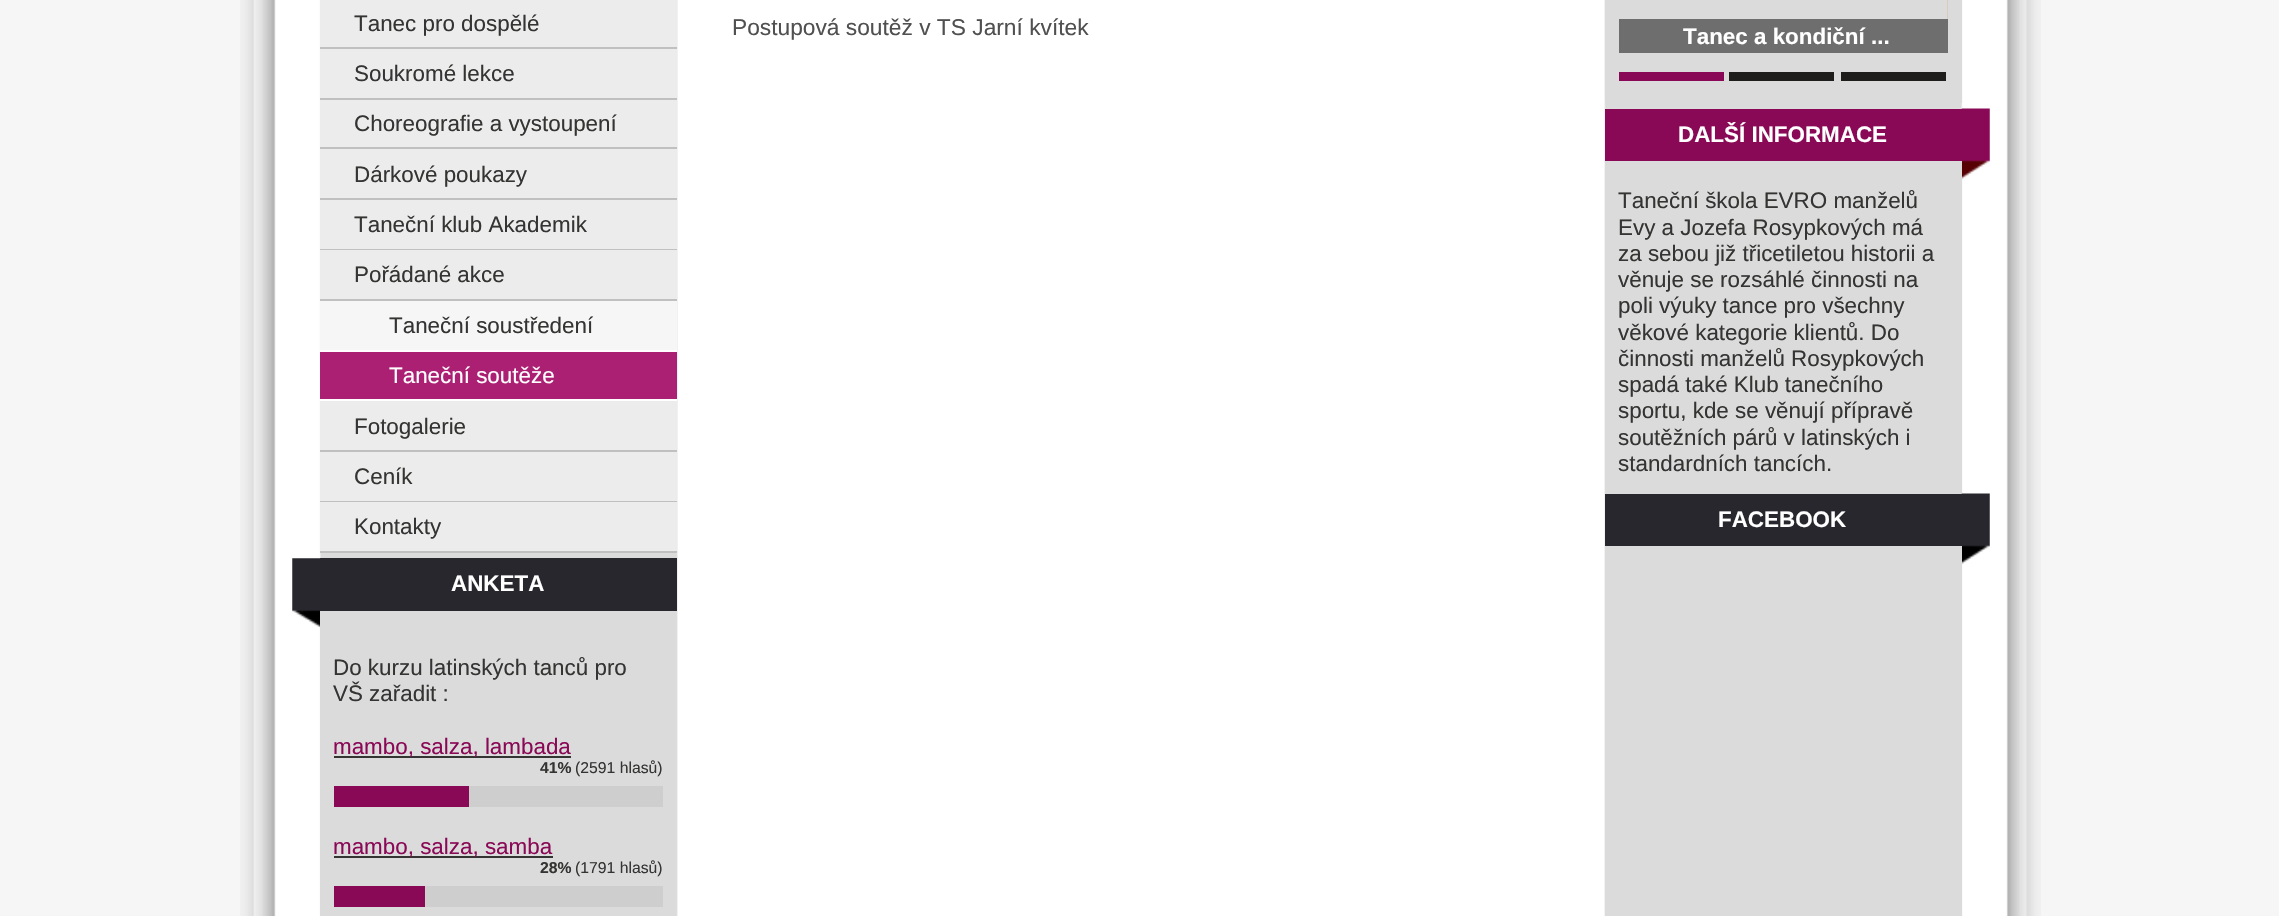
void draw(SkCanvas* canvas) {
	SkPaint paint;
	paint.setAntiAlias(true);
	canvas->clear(0xfff6f6f6);
	canvas->drawImageRect(SkImages::DeferredFromEncodedData(SkData::MakeFromFileName("img1.png")), SkRect::MakeXYWH(240, 0, 1801, 916), SkSamplingOptions());
	paint.setColor(0xffececec);
	canvas->drawRect(SkRect::MakeXYWH(320, 0, 357, 47), paint);
	paint.setColor(0xffc0c0c0);
	canvas->drawRect(SkRect::MakeXYWH(320, 47, 357, 2), paint);
	SkFont f1(fontMgr->matchFamilyStyle("Liberation Sans", SkFontStyle::Normal()), 22.4);
	f1.setSubpixel(true);
	paint.setColor(0xff343532);
	canvas->drawString("Tanec pro dospělé", 354, 31, f1, paint);
	paint.setColor(0xffececec);
	canvas->drawRect(SkRect::MakeXYWH(320, 49, 357, 49), paint);
	paint.setColor(0xffc0c0c0);
	canvas->drawRect(SkRect::MakeXYWH(320, 98, 357, 2), paint);
	paint.setColor(0xff343532);
	canvas->drawString("Soukromé lekce", 354, 81, f1, paint);
	paint.setColor(0xffececec);
	canvas->drawRect(SkRect::MakeXYWH(320, 100, 357, 47), paint);
	paint.setColor(0xffc0c0c0);
	canvas->drawRect(SkRect::MakeXYWH(320, 147, 357, 2), paint);
	paint.setColor(0xff343532);
	canvas->drawString("Choreografie a vystoupení", 354, 131, f1, paint);
	paint.setColor(0xffececec);
	canvas->drawRect(SkRect::MakeXYWH(320, 149, 357, 49), paint);
	paint.setColor(0xffc0c0c0);
	canvas->drawRect(SkRect::MakeXYWH(320, 198, 357, 2), paint);
	paint.setColor(0xff343532);
	canvas->drawString("Dárkové poukazy", 354, 182, f1, paint);
	paint.setColor(0xffececec);
	canvas->drawRect(SkRect::MakeXYWH(320, 200, 357, 49), paint);
	paint.setColor(0xffc0c0c0);
	canvas->drawRect(SkRect::MakeXYWH(320, 249, 357, 1), paint);
	paint.setColor(0xff343532);
	canvas->drawString("Taneční klub Akademik", 354, 232, f1, paint);
	paint.setColor(0xffececec);
	canvas->drawRect(SkRect::MakeXYWH(320, 250, 357, 49), paint);
	paint.setColor(0xffc0c0c0);
	canvas->drawRect(SkRect::MakeXYWH(320, 299, 357, 2), paint);
	paint.setColor(0xff343532);
	canvas->drawString("Pořádané akce", 354, 282, f1, paint);
	paint.setColor(0xfff6f6f6);
	canvas->drawRect(SkRect::MakeXYWH(320, 301, 357, 49), paint);
	paint.setColor(0xffffffff);
	canvas->drawRect(SkRect::MakeXYWH(320, 350, 357, 2), paint);
	paint.setColor(0xff343532);
	canvas->drawString("Taneční soustředení", 389, 333, f1, paint);
	paint.setColor(0xffab2073);
	canvas->drawRect(SkRect::MakeXYWH(320, 352, 357, 47), paint);
	paint.setColor(0xffffffff);
	canvas->drawRect(SkRect::MakeXYWH(320, 399, 357, 2), paint);
	canvas->drawString("Taneční soutěže", 389, 383, f1, paint);
	paint.setColor(0xffececec);
	canvas->drawRect(SkRect::MakeXYWH(320, 401, 357, 49), paint);
	paint.setColor(0xffc0c0c0);
	canvas->drawRect(SkRect::MakeXYWH(320, 450, 357, 2), paint);
	paint.setColor(0xff343532);
	canvas->drawString("Fotogalerie", 354, 434, f1, paint);
	paint.setColor(0xffececec);
	canvas->drawRect(SkRect::MakeXYWH(320, 452, 357, 49), paint);
	paint.setColor(0xffc0c0c0);
	canvas->drawRect(SkRect::MakeXYWH(320, 501, 357, 1), paint);
	paint.setColor(0xff343532);
	canvas->drawString("Ceník", 354, 484, f1, paint);
	paint.setColor(0xffececec);
	canvas->drawRect(SkRect::MakeXYWH(320, 502, 357, 49), paint);
	paint.setColor(0xffc0c0c0);
	canvas->drawRect(SkRect::MakeXYWH(320, 551, 357, 2), paint);
	paint.setColor(0xff343532);
	canvas->drawString("Kontakty", 354, 534, f1, paint);
	canvas->drawImageRect(SkImages::DeferredFromEncodedData(SkData::MakeFromFileName("img2.png")), SkRect::MakeXYWH(292, 558, 28, 70), SkSamplingOptions());
	paint.setColor(0xff28272d);
	canvas->drawRect(SkRect::MakeXYWH(320, 558, 357, 53), paint);
	SkFont f2(fontMgr->matchFamilyStyle("Liberation Sans", SkFontStyle::Bold()), 22.4);
	f2.setSubpixel(true);
	paint.setColor(0xffffffff);
	canvas->drawString("ANKETA", 451, 591, f2, paint);
	paint.setColor(0xffdcdbdc);
	canvas->drawRect(SkRect::MakeXYWH(320, 611, 1, 305), paint);
	paint.setColor(0xff343532);
	canvas->drawString("Do kurzu latinských tanců pro", 333, 675, f1, paint);
	canvas->drawString("VŠ zařadit :", 333, 701, f1, paint);
	canvas->drawRect(SkRect::MakeXYWH(334, 756, 237, 2), paint);
	paint.setColor(0xff8a0956);
	canvas->drawString("mambo, salza, lambada", 333, 754, f1, paint);
	SkFont f3(fontMgr->matchFamilyStyle("Liberation Sans", SkFontStyle::Bold()), 15.75);
	f3.setSubpixel(true);
	paint.setColor(0xff343532);
	canvas->drawString("41%", 540, 773, f3, paint);
	SkFont f4(fontMgr->matchFamilyStyle("Liberation Sans", SkFontStyle::Normal()), 15.75);
	f4.setSubpixel(true);
	canvas->drawString("(2591 hlasů)", 575, 773, f4, paint);
	paint.setColor(0xffcecece);
	canvas->drawRect(SkRect::MakeXYWH(469, 786, 194, 21), paint);
	paint.setColor(0xff8a0956);
	canvas->drawRect(SkRect::MakeXYWH(334, 786, 135, 21), paint);
	paint.setColor(0xff343532);
	canvas->drawRect(SkRect::MakeXYWH(334, 856, 219, 2), paint);
	paint.setColor(0xff8a0956);
	canvas->drawString("mambo, salza, samba", 333, 854, f1, paint);
	paint.setColor(0xff343532);
	canvas->drawString("28%", 540, 873, f3, paint);
	canvas->drawString("(1791 hlasů)", 575, 873, f4, paint);
	paint.setColor(0xffcecece);
	canvas->drawRect(SkRect::MakeXYWH(425, 886, 238, 21), paint);
	paint.setColor(0xff8a0956);
	canvas->drawRect(SkRect::MakeXYWH(334, 886, 91, 21), paint);
	SkFont f5(fontMgr->matchFamilyStyle("Liberation Sans", SkFontStyle::Normal()), 22.75);
	f5.setSubpixel(true);
	paint.setColor(0xff505050);
	canvas->drawString("Postupová soutěž v TS Jarní kvítek", 732, 35, f5, paint);
	paint.setColor(0xffdcdbdc);
	canvas->drawRect(SkRect::MakeXYWH(1605, 0, 357, 103), paint);
	canvas->drawImageRect(SkImages::DeferredFromEncodedData(SkData::MakeFromFileName("img3.png")), SkRect::MakeXYWH(1947, 0, 1, 19), SkSamplingOptions());
	paint.setColor(0xff6e6e6e);
	canvas->drawRect(SkRect::MakeXYWH(1619, 19, 329, 34), paint);
	paint.setColor(0xffffffff);
	canvas->drawString("Tanec a kondiční ...", 1683, 44, f2, paint);
	paint.setColor(0xff8a0956);
	canvas->drawRect(SkRect::MakeXYWH(1619, 72, 105, 9), paint);
	paint.setColor(0xff1f1c1c);
	canvas->drawRect(SkRect::MakeXYWH(1729, 72, 105, 9), paint);
	canvas->drawRect(SkRect::MakeXYWH(1841, 72, 105, 9), paint);
	canvas->drawImageRect(SkImages::DeferredFromEncodedData(SkData::MakeFromFileName("img4.png")), SkRect::MakeXYWH(1961, 108, 29, 71), SkSamplingOptions());
	paint.setColor(0xff8a0956);
	canvas->drawRect(SkRect::MakeXYWH(1605, 109, 357, 52), paint);
	paint.setColor(0xffffffff);
	canvas->drawString("DALŠÍ INFORMACE", 1678, 142, f2, paint);
	paint.setColor(0xffdcdbdc);
	canvas->drawRect(SkRect::MakeXYWH(1605, 161, 357, 333), paint);
	paint.setColor(0xff343532);
	canvas->drawString("Taneční škola EVRO manželů", 1618, 208, f1, paint);
	canvas->drawString("Evy a Jozefa Rosypkových má", 1618, 235, f1, paint);
	canvas->drawString("za sebou již třicetiletou historii a", 1618, 261, f1, paint);
	canvas->drawString("věnuje se rozsáhlé činnosti na", 1618, 287, f1, paint);
	canvas->drawString("poli výuky tance pro všechny", 1618, 313, f1, paint);
	canvas->drawString("věkové kategorie klientů. Do", 1618, 340, f1, paint);
	canvas->drawString("činnosti manželů Rosypkových", 1618, 366, f1, paint);
	canvas->drawString("spadá také Klub tanečního", 1618, 392, f1, paint);
	canvas->drawString("sportu, kde se věnují přípravě", 1618, 418, f1, paint);
	canvas->drawString("soutěžních párů v latinských i", 1618, 445, f1, paint);
	canvas->drawString("standardních tancích.", 1618, 471, f1, paint);
	canvas->drawImageRect(SkImages::DeferredFromEncodedData(SkData::MakeFromFileName("img5.png")), SkRect::MakeXYWH(1961, 493, 29, 71), SkSamplingOptions());
	paint.setColor(0xff28272d);
	canvas->drawRect(SkRect::MakeXYWH(1605, 494, 357, 52), paint);
	paint.setColor(0xffffffff);
	canvas->drawString("FACEBOOK", 1718, 527, f2, paint);
	paint.setColor(0xffdcdbdc);
	canvas->drawRect(SkRect::MakeXYWH(1605, 546, 357, 370), paint);
}
